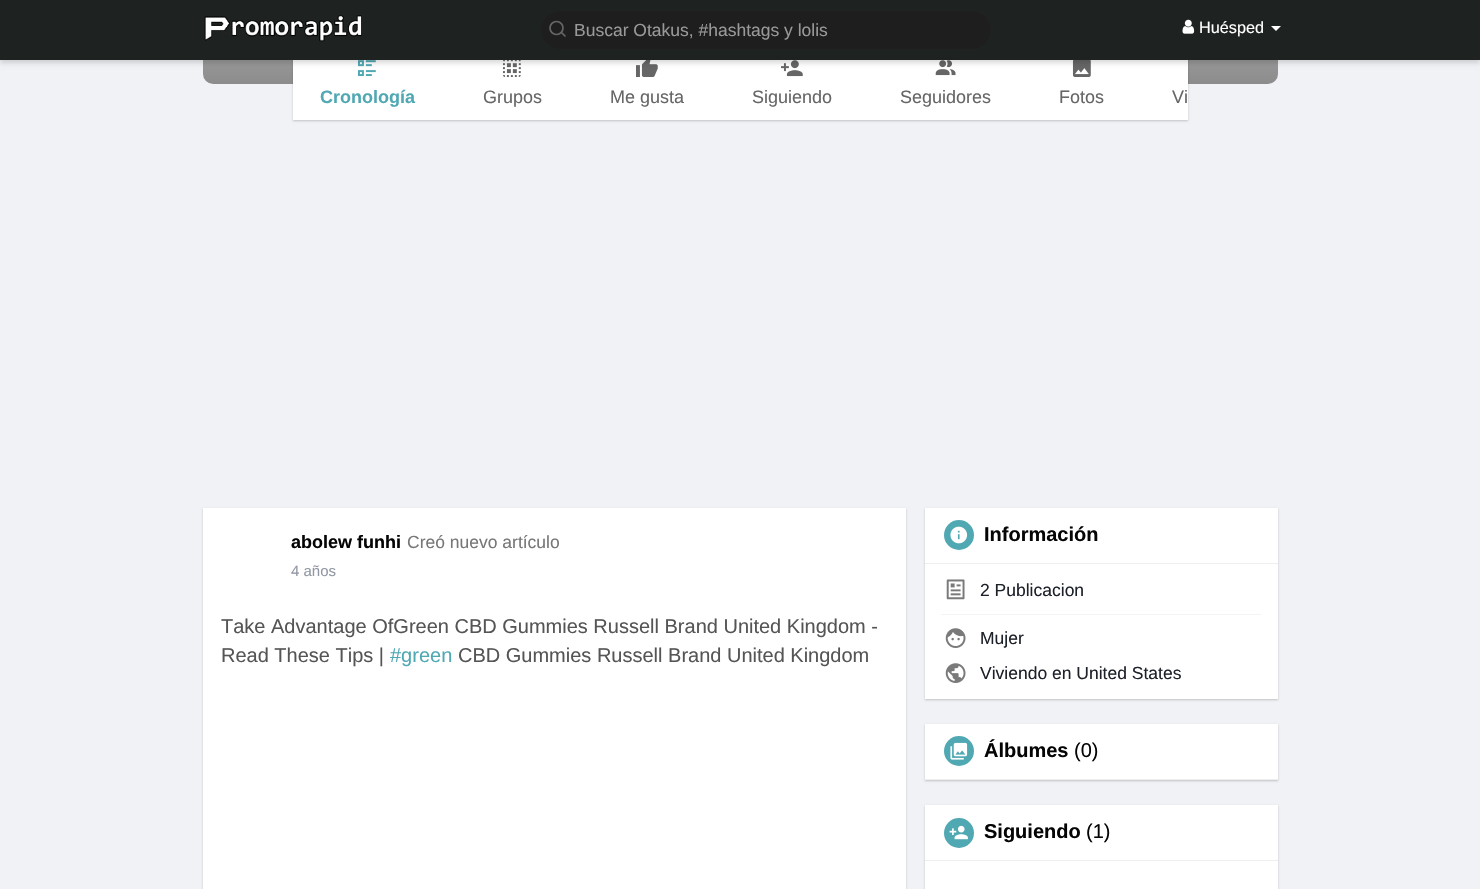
void draw(SkCanvas* canvas) {
	SkPaint paint;
	paint.setAntiAlias(true);
	auto svgPath = [&](const char* data, bool evenOdd = false) {
		SkPath result = *SkParsePath::FromSVGString(data);
		if (evenOdd) result.setFillType(SkPathFillType::kEvenOdd);
		return result;
	};
	canvas->clear(0xfff0f2f5);
	paint.setColor(0xffffffff);
	canvas->drawPath(svgPath("M203 56H1278V74C1278 79.5 1273.5 84 1268 84H213C207.5 84 203 79.5 203 74Z"), paint);
	{
		const SkColor colors[] = {0x00000000, 0x73000000};
		const float stops[] = {0, 1};
		const SkPoint ends[] = {{740, -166}, {740, 84}};
		paint.setShader(SkGradientShader::MakeLinear(ends, colors, stops, 2, SkTileMode::kClamp));
		paint.setAlpha(255);
	}
	canvas->drawRoundRect(SkRect::MakeXYWH(203, -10, 1075, 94), 10, 10, paint);
	paint.setShader(nullptr);
	paint.setColor(0x33000000);
	paint.setMaskFilter(SkMaskFilter::MakeBlur(kNormal_SkBlurStyle, 1));
	canvas->drawRect(SkRect::MakeXYWH(293, 44, 895, 77), paint);
	paint.setMaskFilter(nullptr);
	paint.setColor(0xffffffff);
	canvas->drawRect(SkRect::MakeXYWH(293, 60, 895, 60), paint);
	canvas->drawImageRect(SkImages::DeferredFromEncodedData(SkData::MakeFromFileName("img3.png")), SkRect::MakeXYWH(357, 60, 19, 17), SkSamplingOptions());
	canvas->drawImageRect(SkImages::DeferredFromEncodedData(SkData::MakeFromFileName("img4.png")), SkRect::MakeXYWH(502, 60, 19, 17), SkSamplingOptions());
	canvas->drawImageRect(SkImages::DeferredFromEncodedData(SkData::MakeFromFileName("img5.png")), SkRect::MakeXYWH(636, 60, 22, 17), SkSamplingOptions());
	canvas->drawImageRect(SkImages::DeferredFromEncodedData(SkData::MakeFromFileName("img6.png")), SkRect::MakeXYWH(781, 60, 22, 17), SkSamplingOptions());
	canvas->drawImageRect(SkImages::DeferredFromEncodedData(SkData::MakeFromFileName("img7.png")), SkRect::MakeXYWH(935, 60, 21, 16), SkSamplingOptions());
	canvas->drawImageRect(SkImages::DeferredFromEncodedData(SkData::MakeFromFileName("img8.png")), SkRect::MakeXYWH(1072, 60, 19, 17), SkSamplingOptions());
	paint.setColor(0x26000000);
	paint.setMaskFilter(SkMaskFilter::MakeBlur(kNormal_SkBlurStyle, 2.5));
	canvas->drawRect(SkRect::MakeXYWH(0, 3, 1480, 60), paint);
	paint.setMaskFilter(nullptr);
	paint.setColor(0xff1e2321);
	canvas->drawRect(SkRect::MakeXYWH(0, 0, 1480, 60), paint);
	canvas->drawImageRect(SkImages::DeferredFromEncodedData(SkData::MakeFromFileName("img1.png")), SkRect::MakeXYWH(204, 15, 158, 27), SkSamplingOptions());
	paint.setColor(0xff1e1e1f);
	canvas->drawRoundRect(SkRect::MakeXYWH(541, 11, 450, 38), 19, 19, paint);
	paint.setStroke(true);
	paint.setStrokeWidth(1.7);
	paint.setColor(0xff666666);
	canvas->drawCircle(556.5, 28, 6.5, paint);
	paint.setStrokeCap(SkPaint::kRound_Cap);
	paint.setStrokeJoin(SkPaint::kRound_Join);
	canvas->drawPath(svgPath("M565 36L561.5 32.5"), paint);
	SkFont f1(fontMgr->matchFamilyStyle("Liberation Sans", SkFontStyle::Normal()), 17.5);
	f1.setSubpixel(true);
	paint.setStroke(false);
	paint.setColor(0xff999999);
	canvas->drawString("Buscar Otakus, #hashtags y lolis", 574, 36, f1, paint);
	canvas->drawImageRect(SkImages::DeferredFromEncodedData(SkData::MakeFromFileName("img2.png")), SkRect::MakeXYWH(1182, 19, 13, 15), SkSamplingOptions());
	SkFont f2(fontMgr->matchFamilyStyle("Liberation Sans", SkFontStyle::Normal()), 16.25);
	f2.setSubpixel(true);
	paint.setColor(0xffffffff);
	canvas->drawString("Huésped", 1199, 33, f2, paint);
	canvas->drawPath(svgPath("M1271 26H1281L1276 31Z"), paint);
	SkFont f3(fontMgr->matchFamilyStyle("Liberation Sans", SkFontStyle::Bold()), 18);
	f3.setSubpixel(true);
	paint.setColor(0xff50a8b3);
	canvas->drawString("Cronología", 320, 103, f3, paint);
	SkFont f4(fontMgr->matchFamilyStyle("Liberation Sans", SkFontStyle::Normal()), 18);
	f4.setSubpixel(true);
	paint.setColor(0xff666666);
	canvas->drawString("Grupos", 483, 103, f4, paint);
	canvas->drawString("Me gusta", 610, 103, f4, paint);
	canvas->drawString("Siguiendo", 752, 103, f4, paint);
	canvas->drawString("Seguidores", 900, 103, f4, paint);
	canvas->drawString("Fotos", 1059, 103, f4, paint);
	canvas->drawString("Vi", 1172, 103, f4, paint);
	paint.setColor(0x33000000);
	paint.setMaskFilter(SkMaskFilter::MakeBlur(kNormal_SkBlurStyle, 1));
	canvas->drawRect(SkRect::MakeXYWH(203, 509, 703, 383), paint);
	paint.setMaskFilter(nullptr);
	paint.setColor(0xffffffff);
	canvas->drawRect(SkRect::MakeXYWH(203, 508, 703, 381), paint);
	paint.setColor(0xff050505);
	canvas->drawString("abolew funhi", 291, 548, f3, paint);
	paint.setColor(0xff777777);
	canvas->drawString("Creó nuevo artículo", 407, 548, f1, paint);
	SkFont f5(fontMgr->matchFamilyStyle("Liberation Sans", SkFontStyle::Normal()), 15);
	f5.setSubpixel(true);
	paint.setColor(0xff9197a3);
	canvas->drawString("4 años", 291, 576, f5, paint);
	SkFont f6(fontMgr->matchFamilyStyle("Liberation Sans", SkFontStyle::Normal()), 20);
	f6.setSubpixel(true);
	paint.setColor(0xff555555);
	canvas->drawString("Take Advantage OfGreen CBD Gummies Russell Brand United Kingdom -", 221, 633, f6, paint);
	canvas->drawString("Read These Tips |", 221, 662, f6, paint);
	paint.setColor(0xff50a8b3);
	canvas->drawString("#green", 390, 662, f6, paint);
	paint.setColor(0xff555555);
	canvas->drawString("CBD Gummies Russell Brand United Kingdom", 458, 662, f6, paint);
	paint.setColor(0x33000000);
	paint.setMaskFilter(SkMaskFilter::MakeBlur(kNormal_SkBlurStyle, 1));
	canvas->drawRect(SkRect::MakeXYWH(925, 509, 353, 191), paint);
	paint.setMaskFilter(nullptr);
	paint.setColor(0xffffffff);
	canvas->drawRect(SkRect::MakeXYWH(925, 508, 353, 191), paint);
	paint.setColor(0xffeeeeee);
	canvas->drawRect(SkRect::MakeXYWH(925, 563, 353, 1), paint);
	paint.setColor(0xff50a8b3);
	canvas->drawCircle(959, 535, 15, paint);
	canvas->drawImageRect(SkImages::DeferredFromEncodedData(SkData::MakeFromFileName("img9.png")), SkRect::MakeXYWH(950, 526, 18, 18), SkSamplingOptions());
	SkFont f7(fontMgr->matchFamilyStyle("Liberation Sans", SkFontStyle::Bold()), 20);
	f7.setSubpixel(true);
	paint.setColor(0xff050505);
	canvas->drawString("Información", 984, 541, f7, paint);
	canvas->drawImageRect(SkImages::DeferredFromEncodedData(SkData::MakeFromFileName("img10.png")), SkRect::MakeXYWH(946, 579, 19, 21), SkSamplingOptions());
	paint.setColor(0xff1d2129);
	canvas->drawString("2 Publicacion", 980, 596, f1, paint);
	paint.setColor(0xfff4f4f4);
	canvas->drawRect(SkRect::MakeXYWH(941, 614, 320, 1), paint);
	canvas->drawImageRect(SkImages::DeferredFromEncodedData(SkData::MakeFromFileName("img11.png")), SkRect::MakeXYWH(945, 628, 21, 20), SkSamplingOptions());
	paint.setColor(0xff1d2129);
	canvas->drawString("Mujer", 980, 644, f1, paint);
	canvas->drawImageRect(SkImages::DeferredFromEncodedData(SkData::MakeFromFileName("img12.png")), SkRect::MakeXYWH(945, 663, 21, 20), SkSamplingOptions());
	canvas->drawString("Viviendo en United States", 980, 679, f1, paint);
	paint.setColor(0x33000000);
	paint.setMaskFilter(SkMaskFilter::MakeBlur(kNormal_SkBlurStyle, 1));
	canvas->drawRect(SkRect::MakeXYWH(925, 725, 353, 56), paint);
	paint.setMaskFilter(nullptr);
	paint.setColor(0xffffffff);
	canvas->drawRect(SkRect::MakeXYWH(925, 724, 353, 55), paint);
	paint.setColor(0xffeeeeee);
	canvas->drawRect(SkRect::MakeXYWH(925, 779, 353, 1), paint);
	paint.setColor(0xff50a8b3);
	canvas->drawCircle(959, 751, 15, paint);
	canvas->drawImageRect(SkImages::DeferredFromEncodedData(SkData::MakeFromFileName("img13.png")), SkRect::MakeXYWH(950, 742, 18, 18), SkSamplingOptions());
	paint.setColor(0xff050505);
	canvas->drawString("Álbumes", 984, 757, f7, paint);
	canvas->drawString("(0)", 1074, 757, f6, paint);
	paint.setColor(0x33000000);
	paint.setMaskFilter(SkMaskFilter::MakeBlur(kNormal_SkBlurStyle, 1));
	canvas->drawRect(SkRect::MakeXYWH(925, 806, 353, 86), paint);
	paint.setMaskFilter(nullptr);
	paint.setColor(0xffffffff);
	canvas->drawRect(SkRect::MakeXYWH(925, 805, 353, 84), paint);
	paint.setColor(0xffeeeeee);
	canvas->drawRect(SkRect::MakeXYWH(925, 860, 353, 1), paint);
	paint.setColor(0xff50a8b3);
	canvas->drawCircle(959, 833, 15, paint);
	canvas->drawImageRect(SkImages::DeferredFromEncodedData(SkData::MakeFromFileName("img14.png")), SkRect::MakeXYWH(949, 825, 19, 15), SkSamplingOptions());
	paint.setColor(0xff050505);
	canvas->drawString("Siguiendo", 984, 838, f7, paint);
	canvas->drawString("(1)", 1086, 838, f6, paint);
}
